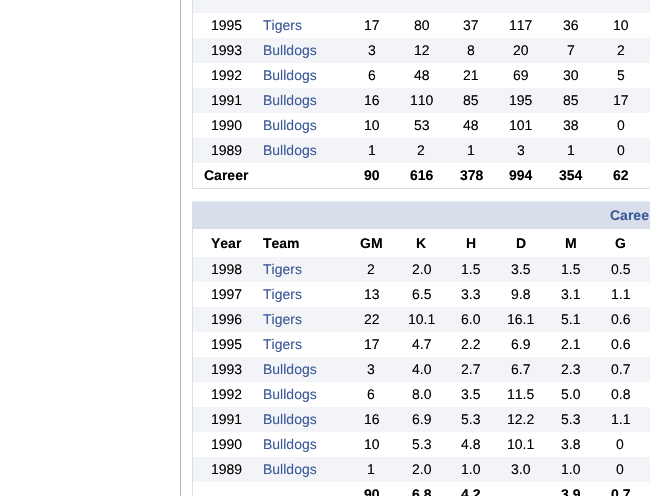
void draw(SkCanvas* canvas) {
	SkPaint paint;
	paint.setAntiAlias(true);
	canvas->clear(0xffffffff);
	paint.setColor(0xffb7b7b7);
	canvas->drawRect(SkRect::MakeXYWH(180, 0, 1, 496), paint);
	paint.setColor(0xffd8dfea);
	canvas->drawRect(SkRect::MakeXYWH(192, 0, 1, 188), paint);
	paint.setColor(0xfff2f4f7);
	canvas->drawRect(SkRect::MakeXYWH(193, 0, 457, 13), paint);
	SkFont f1(fontMgr->matchFamilyStyle("Liberation Sans", SkFontStyle::Normal()), 14);
	f1.setSubpixel(true);
	paint.setColor(0xff000000);
	canvas->drawString("1995", 211, 30, f1, paint);
	paint.setColor(0xff3b5998);
	canvas->drawString("Tigers", 263, 30, f1, paint);
	paint.setColor(0xff000000);
	canvas->drawString("17", 364, 30, f1, paint);
	canvas->drawString("80", 414, 30, f1, paint);
	canvas->drawString("37", 463, 30, f1, paint);
	canvas->drawString("117", 509, 30, f1, paint);
	canvas->drawString("36", 563, 30, f1, paint);
	canvas->drawString("10", 613, 30, f1, paint);
	paint.setColor(0xfff2f4f7);
	canvas->drawRect(SkRect::MakeXYWH(193, 38, 457, 25), paint);
	paint.setColor(0xff000000);
	canvas->drawString("1993", 211, 55, f1, paint);
	paint.setColor(0xff3b5998);
	canvas->drawString("Bulldogs", 263, 55, f1, paint);
	paint.setColor(0xff000000);
	canvas->drawString("3", 368, 55, f1, paint);
	canvas->drawString("12", 414, 55, f1, paint);
	canvas->drawString("8", 467, 55, f1, paint);
	canvas->drawString("20", 513, 55, f1, paint);
	canvas->drawString("7", 567, 55, f1, paint);
	canvas->drawString("2", 617, 55, f1, paint);
	canvas->drawString("1992", 211, 80, f1, paint);
	paint.setColor(0xff3b5998);
	canvas->drawString("Bulldogs", 263, 80, f1, paint);
	paint.setColor(0xff000000);
	canvas->drawString("6", 368, 80, f1, paint);
	canvas->drawString("48", 414, 80, f1, paint);
	canvas->drawString("21", 463, 80, f1, paint);
	canvas->drawString("69", 513, 80, f1, paint);
	canvas->drawString("30", 563, 80, f1, paint);
	canvas->drawString("5", 617, 80, f1, paint);
	paint.setColor(0xfff2f4f7);
	canvas->drawRect(SkRect::MakeXYWH(193, 88, 457, 25), paint);
	paint.setColor(0xff000000);
	canvas->drawString("1991", 211, 105, f1, paint);
	paint.setColor(0xff3b5998);
	canvas->drawString("Bulldogs", 263, 105, f1, paint);
	paint.setColor(0xff000000);
	canvas->drawString("16", 364, 105, f1, paint);
	canvas->drawString("110", 410, 105, f1, paint);
	canvas->drawString("85", 463, 105, f1, paint);
	canvas->drawString("195", 509, 105, f1, paint);
	canvas->drawString("85", 563, 105, f1, paint);
	canvas->drawString("17", 613, 105, f1, paint);
	canvas->drawString("1990", 211, 130, f1, paint);
	paint.setColor(0xff3b5998);
	canvas->drawString("Bulldogs", 263, 130, f1, paint);
	paint.setColor(0xff000000);
	canvas->drawString("10", 364, 130, f1, paint);
	canvas->drawString("53", 414, 130, f1, paint);
	canvas->drawString("48", 463, 130, f1, paint);
	canvas->drawString("101", 509, 130, f1, paint);
	canvas->drawString("38", 563, 130, f1, paint);
	canvas->drawString("0", 617, 130, f1, paint);
	paint.setColor(0xfff2f4f7);
	canvas->drawRect(SkRect::MakeXYWH(193, 138, 457, 25), paint);
	paint.setColor(0xff000000);
	canvas->drawString("1989", 211, 155, f1, paint);
	paint.setColor(0xff3b5998);
	canvas->drawString("Bulldogs", 263, 155, f1, paint);
	paint.setColor(0xff000000);
	canvas->drawString("1", 368, 155, f1, paint);
	canvas->drawString("2", 417, 155, f1, paint);
	canvas->drawString("1", 467, 155, f1, paint);
	canvas->drawString("3", 517, 155, f1, paint);
	canvas->drawString("1", 567, 155, f1, paint);
	canvas->drawString("0", 617, 155, f1, paint);
	SkFont f2(fontMgr->matchFamilyStyle("Liberation Sans", SkFontStyle::Bold()), 14);
	f2.setSubpixel(true);
	canvas->drawString("Career", 204, 180, f2, paint);
	canvas->drawString("90", 364, 180, f2, paint);
	canvas->drawString("616", 410, 180, f2, paint);
	canvas->drawString("378", 460, 180, f2, paint);
	canvas->drawString("994", 509, 180, f2, paint);
	canvas->drawString("354", 559, 180, f2, paint);
	canvas->drawString("62", 613, 180, f2, paint);
	paint.setColor(0xffd8dfea);
	canvas->drawRect(SkRect::MakeXYWH(192, 188, 458, 1), paint);
	canvas->drawRect(SkRect::MakeXYWH(192, 202, 458, 27), paint);
	paint.setColor(0xffe4ebf6);
	canvas->drawRect(SkRect::MakeXYWH(192, 201, 458, 1), paint);
	paint.setColor(0xff3b5998);
	canvas->drawString("Caree", 610, 220, f2, paint);
	paint.setColor(0xffd8dfea);
	canvas->drawRect(SkRect::MakeXYWH(192, 229, 1, 267), paint);
	paint.setColor(0xff000000);
	canvas->drawString("Year", 211, 248, f2, paint);
	canvas->drawString("Team", 263, 248, f2, paint);
	canvas->drawString("GM", 360, 248, f2, paint);
	canvas->drawString("K", 416, 248, f2, paint);
	canvas->drawString("H", 466, 248, f2, paint);
	canvas->drawString("D", 516, 248, f2, paint);
	canvas->drawString("M", 565, 248, f2, paint);
	canvas->drawString("G", 615, 248, f2, paint);
	paint.setColor(0xfff2f4f7);
	canvas->drawRect(SkRect::MakeXYWH(193, 257, 457, 25), paint);
	paint.setColor(0xff000000);
	canvas->drawString("1998", 211, 274, f1, paint);
	paint.setColor(0xff3b5998);
	canvas->drawString("Tigers", 263, 274, f1, paint);
	paint.setColor(0xff000000);
	canvas->drawString("2", 367, 274, f1, paint);
	canvas->drawString("2.0", 412, 274, f1, paint);
	canvas->drawString("1.5", 461, 274, f1, paint);
	canvas->drawString("3.5", 511, 274, f1, paint);
	canvas->drawString("1.5", 561, 274, f1, paint);
	canvas->drawString("0.5", 611, 274, f1, paint);
	canvas->drawString("1997", 211, 299, f1, paint);
	paint.setColor(0xff3b5998);
	canvas->drawString("Tigers", 263, 299, f1, paint);
	paint.setColor(0xff000000);
	canvas->drawString("13", 364, 299, f1, paint);
	canvas->drawString("6.5", 412, 299, f1, paint);
	canvas->drawString("3.3", 461, 299, f1, paint);
	canvas->drawString("9.8", 511, 299, f1, paint);
	canvas->drawString("3.1", 561, 299, f1, paint);
	canvas->drawString("1.1", 611, 299, f1, paint);
	paint.setColor(0xfff2f4f7);
	canvas->drawRect(SkRect::MakeXYWH(193, 307, 457, 25), paint);
	paint.setColor(0xff000000);
	canvas->drawString("1996", 211, 324, f1, paint);
	paint.setColor(0xff3b5998);
	canvas->drawString("Tigers", 263, 324, f1, paint);
	paint.setColor(0xff000000);
	canvas->drawString("22", 364, 324, f1, paint);
	canvas->drawString("10.1", 408, 324, f1, paint);
	canvas->drawString("6.0", 461, 324, f1, paint);
	canvas->drawString("16.1", 507, 324, f1, paint);
	canvas->drawString("5.1", 561, 324, f1, paint);
	canvas->drawString("0.6", 611, 324, f1, paint);
	canvas->drawString("1995", 211, 349, f1, paint);
	paint.setColor(0xff3b5998);
	canvas->drawString("Tigers", 263, 349, f1, paint);
	paint.setColor(0xff000000);
	canvas->drawString("17", 364, 349, f1, paint);
	canvas->drawString("4.7", 412, 349, f1, paint);
	canvas->drawString("2.2", 461, 349, f1, paint);
	canvas->drawString("6.9", 511, 349, f1, paint);
	canvas->drawString("2.1", 561, 349, f1, paint);
	canvas->drawString("0.6", 611, 349, f1, paint);
	paint.setColor(0xfff2f4f7);
	canvas->drawRect(SkRect::MakeXYWH(193, 357, 457, 25), paint);
	paint.setColor(0xff000000);
	canvas->drawString("1993", 211, 374, f1, paint);
	paint.setColor(0xff3b5998);
	canvas->drawString("Bulldogs", 263, 374, f1, paint);
	paint.setColor(0xff000000);
	canvas->drawString("3", 367, 374, f1, paint);
	canvas->drawString("4.0", 412, 374, f1, paint);
	canvas->drawString("2.7", 461, 374, f1, paint);
	canvas->drawString("6.7", 511, 374, f1, paint);
	canvas->drawString("2.3", 561, 374, f1, paint);
	canvas->drawString("0.7", 611, 374, f1, paint);
	canvas->drawString("1992", 211, 399, f1, paint);
	paint.setColor(0xff3b5998);
	canvas->drawString("Bulldogs", 263, 399, f1, paint);
	paint.setColor(0xff000000);
	canvas->drawString("6", 367, 399, f1, paint);
	canvas->drawString("8.0", 412, 399, f1, paint);
	canvas->drawString("3.5", 461, 399, f1, paint);
	canvas->drawString("11.5", 507, 399, f1, paint);
	canvas->drawString("5.0", 561, 399, f1, paint);
	canvas->drawString("0.8", 611, 399, f1, paint);
	paint.setColor(0xfff2f4f7);
	canvas->drawRect(SkRect::MakeXYWH(193, 407, 457, 25), paint);
	paint.setColor(0xff000000);
	canvas->drawString("1991", 211, 424, f1, paint);
	paint.setColor(0xff3b5998);
	canvas->drawString("Bulldogs", 263, 424, f1, paint);
	paint.setColor(0xff000000);
	canvas->drawString("16", 364, 424, f1, paint);
	canvas->drawString("6.9", 412, 424, f1, paint);
	canvas->drawString("5.3", 461, 424, f1, paint);
	canvas->drawString("12.2", 507, 424, f1, paint);
	canvas->drawString("5.3", 561, 424, f1, paint);
	canvas->drawString("1.1", 611, 424, f1, paint);
	canvas->drawString("1990", 211, 449, f1, paint);
	paint.setColor(0xff3b5998);
	canvas->drawString("Bulldogs", 263, 449, f1, paint);
	paint.setColor(0xff000000);
	canvas->drawString("10", 364, 449, f1, paint);
	canvas->drawString("5.3", 412, 449, f1, paint);
	canvas->drawString("4.8", 461, 449, f1, paint);
	canvas->drawString("10.1", 507, 449, f1, paint);
	canvas->drawString("3.8", 561, 449, f1, paint);
	canvas->drawString("0", 616, 449, f1, paint);
	paint.setColor(0xfff2f4f7);
	canvas->drawRect(SkRect::MakeXYWH(193, 457, 457, 25), paint);
	paint.setColor(0xff000000);
	canvas->drawString("1989", 211, 474, f1, paint);
	paint.setColor(0xff3b5998);
	canvas->drawString("Bulldogs", 263, 474, f1, paint);
	paint.setColor(0xff000000);
	canvas->drawString("1", 367, 474, f1, paint);
	canvas->drawString("2.0", 412, 474, f1, paint);
	canvas->drawString("1.0", 461, 474, f1, paint);
	canvas->drawString("3.0", 511, 474, f1, paint);
	canvas->drawString("1.0", 561, 474, f1, paint);
	canvas->drawString("0", 616, 474, f1, paint);
	canvas->drawString("90", 364, 499, f2, paint);
	canvas->drawString("6.8", 412, 499, f2, paint);
	canvas->drawString("4.2", 461, 499, f2, paint);
	canvas->drawString("3.9", 561, 499, f2, paint);
	canvas->drawString("0.7", 611, 499, f2, paint);
}
